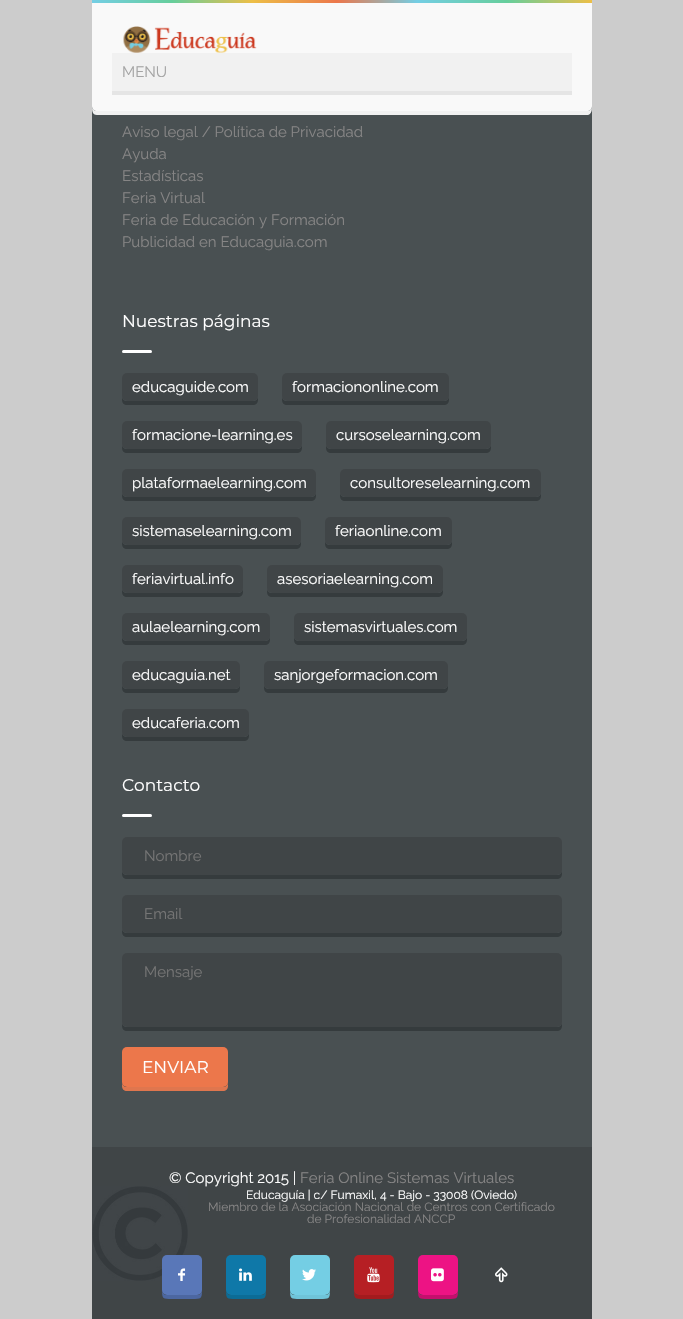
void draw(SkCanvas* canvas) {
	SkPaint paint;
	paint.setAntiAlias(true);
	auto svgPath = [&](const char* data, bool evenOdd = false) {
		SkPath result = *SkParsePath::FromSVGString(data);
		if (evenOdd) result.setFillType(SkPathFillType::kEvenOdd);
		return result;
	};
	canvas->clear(0xffcccccc);
	{
		const SkColor colors[] = {0xff74cee4, 0xff66ce9c, 0xffedbf47, 0xffec774b, 0xff74cee4, 0xff66ce9c, 0xffedbf47};
		const float stops[] = {0, 0.16, 0.32, 0.49, 0.65, 0.83, 1};
		const SkPoint ends[] = {{92, 1.5}, {592, 1.5}};
		paint.setShader(SkGradientShader::MakeLinear(ends, colors, stops, 7, SkTileMode::kClamp));
		paint.setAlpha(255);
	}
	canvas->drawRect(SkRect::MakeXYWH(92, 0, 500, 3), paint);
	paint.setShader(nullptr);
	paint.setColor(0xff495052);
	canvas->drawRect(SkRect::MakeXYWH(92, 106, 500, 1041), paint);
	paint.setColor(0xfff1f1f1);
	canvas->drawPath(svgPath("M92 106C92 110 92 115 97 115H588C592 114 592 109 592 106C592 109 590 111 587 111H97C94 111 92 109 92 106Z"), paint);
	paint.setColor(0xfff9f9f9);
	canvas->drawPath(svgPath("M92 3H592V106C592 109 590 111 587 111H97C94 111 92 109 92 106Z"), paint);
	canvas->drawImageRect(SkImages::DeferredFromEncodedData(SkData::MakeFromFileName("img1.png")), SkRect::MakeXYWH(123, 26, 134, 27), SkSamplingOptions());
	paint.setColor(0xffe5e5e5);
	canvas->drawRect(SkRect::MakeXYWH(112, 91, 460, 4), paint);
	paint.setColor(0xfff1f1f1);
	canvas->drawRect(SkRect::MakeXYWH(112, 53, 460, 38), paint);
	SkFont f1(fontMgr->matchFamilyStyle("Raleway", SkFontStyle::Normal()), 15);
	f1.setSubpixel(true);
	paint.setColor(0xffa4a4a4);
	canvas->drawString("MENU", 122, 77, f1, paint);
	paint.setColor(0xff868585);
	canvas->drawString("Aviso legal / Política de Privacidad", 122, 137, f1, paint);
	canvas->drawString("Ayuda", 122, 159, f1, paint);
	canvas->drawString("Estadísticas", 122, 181, f1, paint);
	canvas->drawString("Feria Virtual", 122, 203, f1, paint);
	canvas->drawString("Feria de Educación y Formación", 122, 225, f1, paint);
	canvas->drawString("Publicidad en Educaguia.com", 122, 247, f1, paint);
	SkFont f2(fontMgr->matchFamilyStyle("Montserrat", SkFontStyle::Normal()), 17);
	f2.setSubpixel(true);
	paint.setColor(0xffffffff);
	canvas->drawString("Nuestras páginas", 122, 327, f2, paint);
	canvas->drawRoundRect(SkRect::MakeXYWH(122, 350, 30, 3), 1.5, 1.5, paint);
	paint.setColor(0xff353b3d);
	canvas->drawPath(svgPath("M122 396V400C122 403 124 405 127 405H253C256 405 258 403 258 400V396C258 399 256 401 253 401H127C124 401 122 399 122 396Z"), paint);
	paint.setColor(0xff404547);
	canvas->drawRoundRect(SkRect::MakeXYWH(122, 373, 136, 28), 5, 5, paint);
	paint.setColor(0xffffffff);
	canvas->drawString("educaguide.com", 132, 392, f1, paint);
	paint.setColor(0xff353b3d);
	canvas->drawPath(svgPath("M282 396V400C282 403 284 405 287 405H444C447 405 449 403 449 400V396C449 399 447 401 444 401H287C284 401 282 399 282 396Z"), paint);
	paint.setColor(0xff404547);
	canvas->drawRoundRect(SkRect::MakeXYWH(282, 373, 167, 28), 5, 5, paint);
	paint.setColor(0xffffffff);
	canvas->drawString("formaciononline.com", 292, 392, f1, paint);
	paint.setColor(0xff353b3d);
	canvas->drawPath(svgPath("M122 444V448C122 451 124 453 127 453H297C300 453 302 451 302 448V444C302 447 300 449 297 449H127C124 449 122 447 122 444Z"), paint);
	paint.setColor(0xff404547);
	canvas->drawRoundRect(SkRect::MakeXYWH(122, 421, 180, 28), 5, 5, paint);
	paint.setColor(0xffffffff);
	canvas->drawString("formacione-learning.es", 132, 440, f1, paint);
	paint.setColor(0xff353b3d);
	canvas->drawPath(svgPath("M326 444V448C326 451 328 453 331 453H486C489 453 491 451 491 448V444C491 447 489 449 486 449H331C328 449 326 447 326 444Z"), paint);
	paint.setColor(0xff404547);
	canvas->drawRoundRect(SkRect::MakeXYWH(326, 421, 165, 28), 5, 5, paint);
	paint.setColor(0xffffffff);
	canvas->drawString("cursoselearning.com", 336, 440, f1, paint);
	paint.setColor(0xff353b3d);
	canvas->drawPath(svgPath("M122 492V496C122 499 124 501 127 501H311C314 501 316 499 316 496V492C316 495 314 497 311 497H127C124 497 122 495 122 492Z"), paint);
	paint.setColor(0xff404547);
	canvas->drawRoundRect(SkRect::MakeXYWH(122, 469, 194, 28), 5, 5, paint);
	paint.setColor(0xffffffff);
	canvas->drawString("plataformaelearning.com", 132, 488, f1, paint);
	paint.setColor(0xff353b3d);
	canvas->drawPath(svgPath("M340 492V496C340 499 342 501 345 501H536C539 501 541 499 541 496V492C541 495 539 497 536 497H345C342 497 340 495 340 492Z"), paint);
	paint.setColor(0xff404547);
	canvas->drawRoundRect(SkRect::MakeXYWH(340, 469, 201, 28), 5, 5, paint);
	paint.setColor(0xffffffff);
	canvas->drawString("consultoreselearning.com", 350, 488, f1, paint);
	paint.setColor(0xff353b3d);
	canvas->drawPath(svgPath("M122 540V544C122 547 124 549 127 549H296C299 549 301 547 301 544V540C301 543 299 545 296 545H127C124 545 122 543 122 540Z"), paint);
	paint.setColor(0xff404547);
	canvas->drawRoundRect(SkRect::MakeXYWH(122, 517, 179, 28), 5, 5, paint);
	paint.setColor(0xffffffff);
	canvas->drawString("sistemaselearning.com", 132, 536, f1, paint);
	paint.setColor(0xff353b3d);
	canvas->drawPath(svgPath("M325 540V544C325 547 327 549 330 549H447C450 549 452 547 452 544V540C452 543 450 545 447 545H330C327 545 325 543 325 540Z"), paint);
	paint.setColor(0xff404547);
	canvas->drawRoundRect(SkRect::MakeXYWH(325, 517, 127, 28), 5, 5, paint);
	paint.setColor(0xffffffff);
	canvas->drawString("feriaonline.com", 335, 536, f1, paint);
	paint.setColor(0xff353b3d);
	canvas->drawPath(svgPath("M122 588V592C122 595 124 597 127 597H238C241 597 243 595 243 592V588C243 591 241 593 238 593H127C124 593 122 591 122 588Z"), paint);
	paint.setColor(0xff404547);
	canvas->drawRoundRect(SkRect::MakeXYWH(122, 565, 121, 28), 5, 5, paint);
	paint.setColor(0xffffffff);
	canvas->drawString("feriavirtual.info", 132, 584, f1, paint);
	paint.setColor(0xff353b3d);
	canvas->drawPath(svgPath("M267 588V592C267 595 269 597 272 597H438C441 597 443 595 443 592V588C443 591 441 593 438 593H272C269 593 267 591 267 588Z"), paint);
	paint.setColor(0xff404547);
	canvas->drawRoundRect(SkRect::MakeXYWH(267, 565, 176, 28), 5, 5, paint);
	paint.setColor(0xffffffff);
	canvas->drawString("asesoriaelearning.com", 277, 584, f1, paint);
	paint.setColor(0xff353b3d);
	canvas->drawPath(svgPath("M122 636V640C122 643 124 645 127 645H265C268 645 270 643 270 640V636C270 639 268 641 265 641H127C124 641 122 639 122 636Z"), paint);
	paint.setColor(0xff404547);
	canvas->drawRoundRect(SkRect::MakeXYWH(122, 613, 148, 28), 5, 5, paint);
	paint.setColor(0xffffffff);
	canvas->drawString("aulaelearning.com", 132, 632, f1, paint);
	paint.setColor(0xff353b3d);
	canvas->drawPath(svgPath("M294 636V640C294 643 296 645 299 645H462C465 645 467 643 467 640V636C467 639 465 641 462 641H299C296 641 294 639 294 636Z"), paint);
	paint.setColor(0xff404547);
	canvas->drawRoundRect(SkRect::MakeXYWH(294, 613, 173, 28), 5, 5, paint);
	paint.setColor(0xffffffff);
	canvas->drawString("sistemasvirtuales.com", 304, 632, f1, paint);
	paint.setColor(0xff353b3d);
	canvas->drawPath(svgPath("M122 684V688C122 691 124 693 127 693H235C238 693 240 691 240 688V684C240 687 238 689 235 689H127C124 689 122 687 122 684Z"), paint);
	paint.setColor(0xff404547);
	canvas->drawRoundRect(SkRect::MakeXYWH(122, 661, 118, 28), 5, 5, paint);
	paint.setColor(0xffffffff);
	canvas->drawString("educaguia.net", 132, 680, f1, paint);
	paint.setColor(0xff353b3d);
	canvas->drawPath(svgPath("M264 684V688C264 691 266 693 269 693H443C446 693 448 691 448 688V684C448 687 446 689 443 689H269C266 689 264 687 264 684Z"), paint);
	paint.setColor(0xff404547);
	canvas->drawRoundRect(SkRect::MakeXYWH(264, 661, 184, 28), 5, 5, paint);
	paint.setColor(0xffffffff);
	canvas->drawString("sanjorgeformacion.com", 274, 680, f1, paint);
	paint.setColor(0xff353b3d);
	canvas->drawPath(svgPath("M122 732V736C122 739 124 741 127 741H244C247 741 249 739 249 736V732C249 735 247 737 244 737H127C124 737 122 735 122 732Z"), paint);
	paint.setColor(0xff404547);
	canvas->drawRoundRect(SkRect::MakeXYWH(122, 709, 127, 28), 5, 5, paint);
	paint.setColor(0xffffffff);
	canvas->drawString("educaferia.com", 132, 728, f1, paint);
	canvas->drawString("Contacto", 122, 791, f2, paint);
	canvas->drawRoundRect(SkRect::MakeXYWH(122, 814, 30, 3), 1.5, 1.5, paint);
	paint.setColor(0xff353b3d);
	canvas->drawPath(svgPath("M122 870V874C122 877 124 879 127 879H557C560 879 562 877 562 874V870C562 873 560 875 557 875H127C124 875 122 873 122 870Z"), paint);
	paint.setColor(0xff404547);
	canvas->drawRoundRect(SkRect::MakeXYWH(122, 837, 440, 38), 5, 5, paint);
	paint.setColor(0xff757575);
	canvas->drawString("Nombre", 144, 861, f1, paint);
	paint.setColor(0xff353b3d);
	canvas->drawPath(svgPath("M122 928V932C122 935 124 937 127 937H557C560 937 562 935 562 932V928C562 931 560 933 557 933H127C124 933 122 931 122 928Z"), paint);
	paint.setColor(0xff404547);
	canvas->drawRoundRect(SkRect::MakeXYWH(122, 895, 440, 38), 5, 5, paint);
	paint.setColor(0xff757575);
	canvas->drawString("Email", 144, 919, f1, paint);
	paint.setColor(0xff353b3d);
	canvas->drawPath(svgPath("M122 1022V1026C122 1029 124 1031 127 1031H557C560 1031 562 1029 562 1026V1022C562 1025 560 1027 557 1027H127C124 1027 122 1025 122 1022Z"), paint);
	paint.setColor(0xff404547);
	canvas->drawRoundRect(SkRect::MakeXYWH(122, 953, 440, 74), 5, 5, paint);
	paint.setColor(0xff757575);
	canvas->drawString("Mensaje", 144, 977, f1, paint);
	paint.setColor(0xffdf764e);
	canvas->drawPath(svgPath("M122 1082V1086C122 1089 124 1091 127 1091H223C226 1091 228 1089 228 1086V1082C228 1085 226 1087 223 1087H127C124 1087 122 1085 122 1082Z"), paint);
	paint.setColor(0xffec774b);
	canvas->drawRoundRect(SkRect::MakeXYWH(122, 1047, 106, 40), 5, 5, paint);
	paint.setColor(0xffffffff);
	canvas->drawString("ENVIAR", 142, 1073, f2, paint);
	paint.setColor(0xff404547);
	canvas->drawRect(SkRect::MakeXYWH(92, 1147, 500, 172), paint);
	canvas->drawImageRect(SkImages::DeferredFromEncodedData(SkData::MakeFromFileName("img2.png")), SkRect::MakeXYWH(92, 1186, 96, 95), SkSamplingOptions());
	paint.setColor(0xffffffff);
	canvas->drawString("© Copyright 2015 |", 169, 1183, f1, paint);
	paint.setColor(0xff868585);
	canvas->drawString("Feria Online Sistemas Virtuales", 300, 1183, f1, paint);
	SkFont f3(fontMgr->matchFamilyStyle("Raleway", SkFontStyle::Normal()), 12);
	f3.setSubpixel(true);
	paint.setColor(0xffffffff);
	canvas->drawString("Educaguía | c/ Fumaxil, 4 - Bajo - 33008 (Oviedo)", 246, 1199, f3, paint);
	paint.setColor(0xff868585);
	canvas->drawString("Miembro de la Asociación Nacional de Centros con Certificado", 208, 1211, f3, paint);
	canvas->drawString("de Profesionalidad ANCCP", 307, 1223, f3, paint);
	paint.setColor(0xff4c67a1);
	canvas->drawPath(svgPath("M162 1290C162 1299 163 1299 172 1299H192C201 1299 202 1299 202 1290C202 1293 200 1295 197 1295H167C164 1295 162 1293 162 1290Z"), paint);
	paint.setColor(0xff5977b8);
	canvas->drawRoundRect(SkRect::MakeXYWH(162, 1255, 40, 40), 5, 5, paint);
	canvas->drawImageRect(SkImages::DeferredFromEncodedData(SkData::MakeFromFileName("img3.png")), SkRect::MakeXYWH(178, 1268, 8, 13), SkSamplingOptions());
	paint.setColor(0xff0c6c96);
	canvas->drawPath(svgPath("M226 1290C226 1299 227 1299 236 1299H256C265 1299 266 1299 266 1290C266 1293 264 1295 261 1295H231C228 1295 226 1293 226 1290Z"), paint);
	paint.setColor(0xff0f78a8);
	canvas->drawRoundRect(SkRect::MakeXYWH(226, 1255, 40, 40), 5, 5, paint);
	canvas->drawImageRect(SkImages::DeferredFromEncodedData(SkData::MakeFromFileName("img4.png")), SkRect::MakeXYWH(239, 1268, 13, 13), SkSamplingOptions());
	paint.setColor(0xff6fc4d9);
	canvas->drawPath(svgPath("M290 1290C290 1299 291 1299 300 1299H320C329 1299 330 1299 330 1290C330 1293 328 1295 325 1295H295C292 1295 290 1293 290 1290Z"), paint);
	paint.setColor(0xff74cee4);
	canvas->drawRoundRect(SkRect::MakeXYWH(290, 1255, 40, 40), 5, 5, paint);
	canvas->drawImageRect(SkImages::DeferredFromEncodedData(SkData::MakeFromFileName("img5.png")), SkRect::MakeXYWH(302, 1269, 14, 12), SkSamplingOptions());
	paint.setColor(0xffa31b1e);
	canvas->drawPath(svgPath("M354 1290C354 1299 355 1299 364 1299H384C393 1299 394 1299 394 1290C394 1293 392 1295 389 1295H359C356 1295 354 1293 354 1290Z"), paint);
	paint.setColor(0xffb61f24);
	canvas->drawRoundRect(SkRect::MakeXYWH(354, 1255, 40, 40), 5, 5, paint);
	canvas->drawImageRect(SkImages::DeferredFromEncodedData(SkData::MakeFromFileName("img6.png")), SkRect::MakeXYWH(367, 1267, 13, 16), SkSamplingOptions());
	paint.setColor(0xffc40f6d);
	canvas->drawPath(svgPath("M418 1290C418 1299 419 1299 428 1299H448C457 1299 458 1299 458 1290C458 1293 456 1295 453 1295H423C420 1295 418 1293 418 1290Z"), paint);
	paint.setColor(0xffed1384);
	canvas->drawRoundRect(SkRect::MakeXYWH(418, 1255, 40, 40), 5, 5, paint);
	canvas->drawImageRect(SkImages::DeferredFromEncodedData(SkData::MakeFromFileName("img7.png")), SkRect::MakeXYWH(431, 1268, 13, 14), SkSamplingOptions());
	canvas->drawImageRect(SkImages::DeferredFromEncodedData(SkData::MakeFromFileName("img8.png")), SkRect::MakeXYWH(495, 1267, 13, 16), SkSamplingOptions());
}
